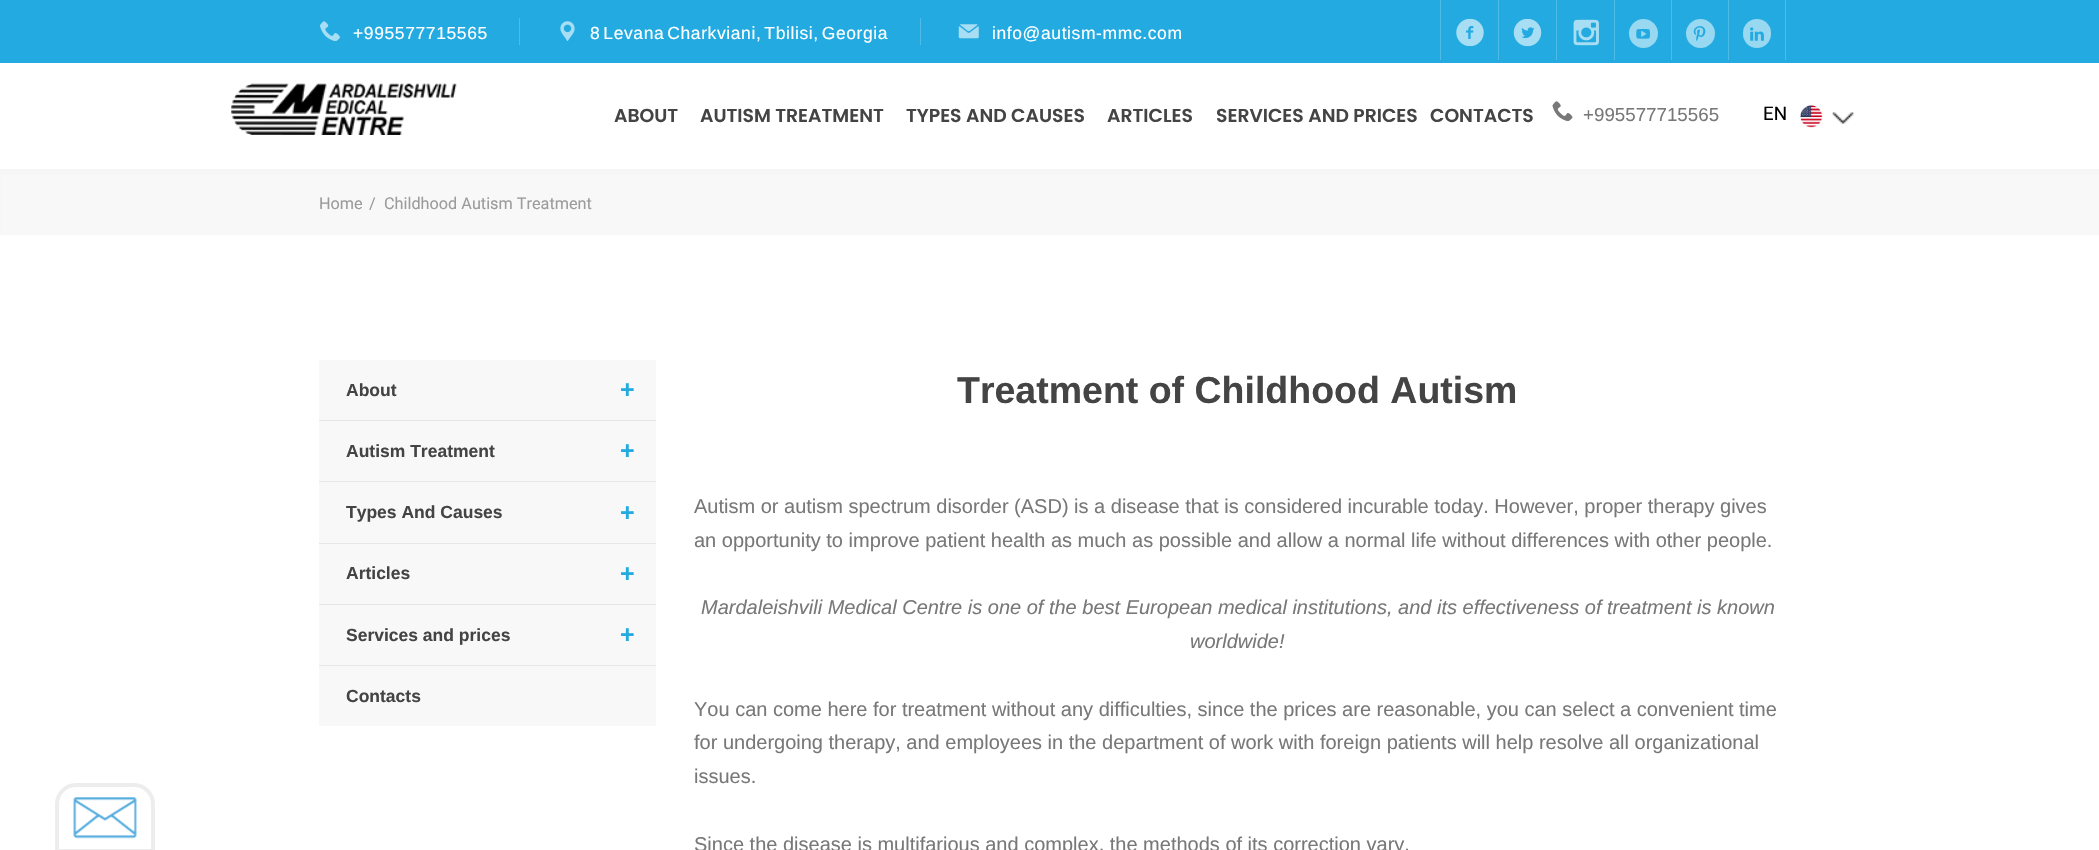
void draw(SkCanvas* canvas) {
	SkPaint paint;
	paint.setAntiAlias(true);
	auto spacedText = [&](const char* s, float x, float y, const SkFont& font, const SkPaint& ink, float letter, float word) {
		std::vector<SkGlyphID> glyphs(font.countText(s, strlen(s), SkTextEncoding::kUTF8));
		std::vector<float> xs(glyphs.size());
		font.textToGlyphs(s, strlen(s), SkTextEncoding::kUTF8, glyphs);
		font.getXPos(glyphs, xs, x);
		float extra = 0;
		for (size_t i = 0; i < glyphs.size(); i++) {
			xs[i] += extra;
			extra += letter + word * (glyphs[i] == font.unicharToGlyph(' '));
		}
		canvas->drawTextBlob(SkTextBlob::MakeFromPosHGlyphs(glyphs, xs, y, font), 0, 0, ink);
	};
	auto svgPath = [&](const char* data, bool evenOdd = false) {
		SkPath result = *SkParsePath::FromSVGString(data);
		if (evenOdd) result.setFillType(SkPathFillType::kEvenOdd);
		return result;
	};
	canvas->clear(0xff23abe1);
	canvas->drawImageRect(SkImages::DeferredFromEncodedData(SkData::MakeFromFileName("img1.png")), SkRect::MakeXYWH(320, 21, 20, 20), SkSamplingOptions());
	SkFont f1(fontMgr->matchFamilyStyle("Liberation Sans", SkFontStyle::Normal()), 17.5);
	f1.setSubpixel(true);
	paint.setColor(0xffffffff);
	spacedText("+995577715565", 353, 39, f1, paint, 0.6, 0);
	paint.setColor(0xff4fbce7);
	canvas->drawRect(SkRect::MakeXYWH(519, 18, 1, 27), paint);
	canvas->drawImageRect(SkImages::DeferredFromEncodedData(SkData::MakeFromFileName("img2.png")), SkRect::MakeXYWH(560, 21, 15, 20), SkSamplingOptions());
	paint.setColor(0xffffffff);
	spacedText("8 Levana Charkviani, Tbilisi, Georgia", 590, 39, f1, paint, 0.6, -2.5);
	paint.setColor(0xff4fbce7);
	canvas->drawRect(SkRect::MakeXYWH(920, 18, 1, 27), paint);
	canvas->drawImageRect(SkImages::DeferredFromEncodedData(SkData::MakeFromFileName("img3.png")), SkRect::MakeXYWH(958, 24, 21, 15), SkSamplingOptions());
	paint.setColor(0xffffffff);
	spacedText("info@autism-mmc.com", 992, 39, f1, paint, 0.6, 0);
	paint.setColor(0xff4fbce7);
	canvas->drawRect(SkRect::MakeXYWH(1440, 0, 1, 60), paint);
	canvas->drawImageRect(SkImages::DeferredFromEncodedData(SkData::MakeFromFileName("img4.png")), SkRect::MakeXYWH(1456, 18, 28, 29), SkSamplingOptions());
	canvas->drawRect(SkRect::MakeXYWH(1498, 0, 1, 60), paint);
	canvas->drawImageRect(SkImages::DeferredFromEncodedData(SkData::MakeFromFileName("img5.png")), SkRect::MakeXYWH(1513, 18, 29, 29), SkSamplingOptions());
	canvas->drawRect(SkRect::MakeXYWH(1556, 0, 1, 60), paint);
	canvas->drawImageRect(SkImages::DeferredFromEncodedData(SkData::MakeFromFileName("img6.png")), SkRect::MakeXYWH(1573, 19, 26, 27), SkSamplingOptions());
	canvas->drawRect(SkRect::MakeXYWH(1614, 0, 1, 60), paint);
	paint.setColor(0xff98d8f1);
	canvas->drawCircle(1643.5, 33.5, 14.5, paint);
	canvas->drawImageRect(SkImages::DeferredFromEncodedData(SkData::MakeFromFileName("img7.png")), SkRect::MakeXYWH(1636, 28, 14, 11), SkSamplingOptions());
	paint.setColor(0xff4fbce7);
	canvas->drawRect(SkRect::MakeXYWH(1671, 0, 1, 60), paint);
	paint.setColor(0xff98d8f1);
	canvas->drawCircle(1700.5, 33.5, 14.5, paint);
	canvas->drawImageRect(SkImages::DeferredFromEncodedData(SkData::MakeFromFileName("img8.png")), SkRect::MakeXYWH(1693, 26, 13, 15), SkSamplingOptions());
	paint.setColor(0xff4fbce7);
	canvas->drawRect(SkRect::MakeXYWH(1728, 0, 1, 60), paint);
	paint.setColor(0xff98d8f1);
	canvas->drawRoundRect(SkRect::MakeXYWH(1743, 19, 28, 29), 14, 14, paint);
	canvas->drawImageRect(SkImages::DeferredFromEncodedData(SkData::MakeFromFileName("img9.png")), SkRect::MakeXYWH(1750, 27, 14, 14), SkSamplingOptions());
	paint.setColor(0xff4fbce7);
	canvas->drawRect(SkRect::MakeXYWH(1785, 0, 1, 60), paint);
	paint.setColor(0xffffffff);
	canvas->drawRect(SkRect::MakeXYWH(0, 63, 2099, 106), paint);
	canvas->drawImageRect(SkImages::DeferredFromEncodedData(SkData::MakeFromFileName("img10.png")), SkRect::MakeXYWH(231, 83, 226, 52), SkSamplingOptions());
	SkFont f2(fontMgr->matchFamilyStyle("Poppins", SkFontStyle(600, SkFontStyle::kNormal_Width, SkFontStyle::kUpright_Slant)), 18.75);
	f2.setSubpixel(true);
	paint.setColor(0xff444444);
	canvas->drawString("ABOUT", 614, 122, f2, paint);
	canvas->drawString("AUTISM TREATMENT", 700, 122, f2, paint);
	canvas->drawString("TYPES AND CAUSES", 906, 122, f2, paint);
	canvas->drawString("ARTICLES", 1107, 122, f2, paint);
	canvas->drawString("SERVICES AND PRICES", 1216, 122, f2, paint);
	canvas->drawString("CONTACTS", 1430, 122, f2, paint);
	canvas->drawImageRect(SkImages::DeferredFromEncodedData(SkData::MakeFromFileName("img11.png")), SkRect::MakeXYWH(1552, 101, 21, 20), SkSamplingOptions());
	SkFont f3(fontMgr->matchFamilyStyle("Liberation Sans", SkFontStyle::Normal()), 18.75);
	f3.setSubpixel(true);
	paint.setColor(0xff787878);
	canvas->drawString("+995577715565", 1583, 121, f3, paint);
	SkFont f4(fontMgr->matchFamilyStyle("Roboto", SkFontStyle::Normal()), 18.75);
	f4.setSubpixel(true);
	paint.setColor(0xff000000);
	canvas->drawString("EN", 1763, 120, f4, paint);
	canvas->drawImageRect(SkImages::DeferredFromEncodedData(SkData::MakeFromFileName("img12.png")), SkRect::MakeXYWH(1800, 105, 23, 23), SkSamplingOptions());
	canvas->drawImageRect(SkImages::DeferredFromEncodedData(SkData::MakeFromFileName("img13.png")), SkRect::MakeXYWH(1832, 112, 22, 12), SkSamplingOptions());
	paint.setColor(0xffffffff);
	canvas->drawRect(SkRect::MakeXYWH(0, 235, 2099, 615), paint);
	paint.setStroke(true);
	paint.setStrokeWidth(4);
	paint.setColor(0xffededed);
	canvas->drawPath(svgPath("M76 785H134C144.5 785 153 793.5 153 804V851H57V804C57 793.5 65.5 785 76 785Z"), paint);
	canvas->drawImageRect(SkImages::DeferredFromEncodedData(SkData::MakeFromFileName("img14.png")), SkRect::MakeXYWH(73, 797, 64, 42), SkSamplingOptions());
	paint.setStroke(false);
	paint.setColor(0xfff8f8f8);
	canvas->drawRect(SkRect::MakeXYWH(1, 174, 2098, 61), paint);
	canvas->save();
	canvas->clipRect(SkRect::MakeXYWH(0, 169, 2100, 66));
	paint.setColor(0xfff6f6f6);
	canvas->drawPath(svgPath("M-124 45H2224V359H-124ZM1 174H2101V240H1Z", true), paint);
	canvas->restore();
	SkFont f5(fontMgr->matchFamilyStyle("Roboto", SkFontStyle::Normal()), 16.25);
	f5.setSubpixel(true);
	paint.setColor(0xff9b9b9b);
	canvas->drawString("Home", 319, 209, f5, paint);
	canvas->drawString("/", 369, 209, f5, paint);
	canvas->drawString("Childhood Autism Treatment", 384, 209, f5, paint);
	paint.setColor(0xfff8f8f8);
	canvas->drawRect(SkRect::MakeXYWH(319, 360, 337, 60), paint);
	paint.setColor(0xffe6e6e6);
	canvas->drawRect(SkRect::MakeXYWH(319, 420, 337, 1), paint);
	SkFont f6(fontMgr->matchFamilyStyle("Liberation Sans", SkFontStyle::Bold()), 17.5);
	f6.setSubpixel(true);
	paint.setColor(0xff444444);
	canvas->drawString("About", 346, 396, f6, paint);
	SkFont f7(fontMgr->matchFamilyStyle("Liberation Sans", SkFontStyle::Bold()), 25);
	f7.setSubpixel(true);
	paint.setColor(0xff23abe1);
	canvas->drawString("+", 620, 398, f7, paint);
	paint.setColor(0xfff8f8f8);
	canvas->drawRect(SkRect::MakeXYWH(319, 421, 337, 122), paint);
	paint.setColor(0xffe6e6e6);
	canvas->drawRect(SkRect::MakeXYWH(319, 481, 337, 1), paint);
	paint.setColor(0xff444444);
	canvas->drawString("Autism Treatment", 346, 457, f6, paint);
	paint.setColor(0xff23abe1);
	canvas->drawString("+", 620, 459, f7, paint);
	paint.setColor(0xffe6e6e6);
	canvas->drawRect(SkRect::MakeXYWH(319, 543, 337, 1), paint);
	paint.setColor(0xff444444);
	canvas->drawString("Types And Causes", 346, 518, f6, paint);
	paint.setColor(0xff23abe1);
	canvas->drawString("+", 620, 521, f7, paint);
	paint.setColor(0xfff8f8f8);
	canvas->drawRect(SkRect::MakeXYWH(319, 544, 337, 60), paint);
	paint.setColor(0xffe6e6e6);
	canvas->drawRect(SkRect::MakeXYWH(319, 604, 337, 1), paint);
	paint.setColor(0xff444444);
	canvas->drawString("Articles", 346, 579, f6, paint);
	paint.setColor(0xff23abe1);
	canvas->drawString("+", 620, 582, f7, paint);
	paint.setColor(0xfff8f8f8);
	canvas->drawRect(SkRect::MakeXYWH(319, 605, 337, 60), paint);
	paint.setColor(0xffe6e6e6);
	canvas->drawRect(SkRect::MakeXYWH(319, 665, 337, 1), paint);
	paint.setColor(0xff444444);
	canvas->drawString("Services and prices", 346, 641, f6, paint);
	paint.setColor(0xff23abe1);
	canvas->drawString("+", 620, 643, f7, paint);
	paint.setColor(0xfff8f8f8);
	canvas->drawRect(SkRect::MakeXYWH(319, 666, 337, 60), paint);
	paint.setColor(0xff444444);
	canvas->drawString("Contacts", 346, 702, f6, paint);
	SkFont f8(fontMgr->matchFamilyStyle("Liberation Sans", SkFontStyle::Bold()), 37.5);
	f8.setSubpixel(true);
	canvas->drawString("Treatment of Childhood Autism", 957, 403, f8, paint);
	SkFont f9(fontMgr->matchFamilyStyle("Liberation Sans", SkFontStyle::Normal()), 20);
	f9.setSubpixel(true);
	paint.setColor(0xff787878);
	canvas->drawString("Autism or autism spectrum disorder (ASD) is a disease that is considered incurable today. However, proper therapy gives", 694, 513, f9, paint);
	canvas->drawString("an opportunity to improve patient health as much as possible and allow a normal life without differences with other people.", 694, 547, f9, paint);
	SkFont f10(fontMgr->matchFamilyStyle("Liberation Sans", SkFontStyle::Italic()), 20);
	f10.setSubpixel(true);
	canvas->drawString("Mardaleishvili Medical Centre is one of the best European medical institutions, and its effectiveness of treatment is known", 701, 614, f10, paint);
	canvas->drawString("worldwide!", 1190, 648, f10, paint);
	canvas->drawString("You can come here for treatment without any difficulties, since the prices are reasonable, you can select a convenient time", 694, 716, f9, paint);
	canvas->drawString("for undergoing therapy, and employees in the department of work with foreign patients will help resolve all organizational", 694, 749, f9, paint);
	canvas->drawString("issues.", 694, 783, f9, paint);
	canvas->drawString("Since the disease is multifarious and complex, the methods of its correction vary.", 694, 851, f9, paint);
}
